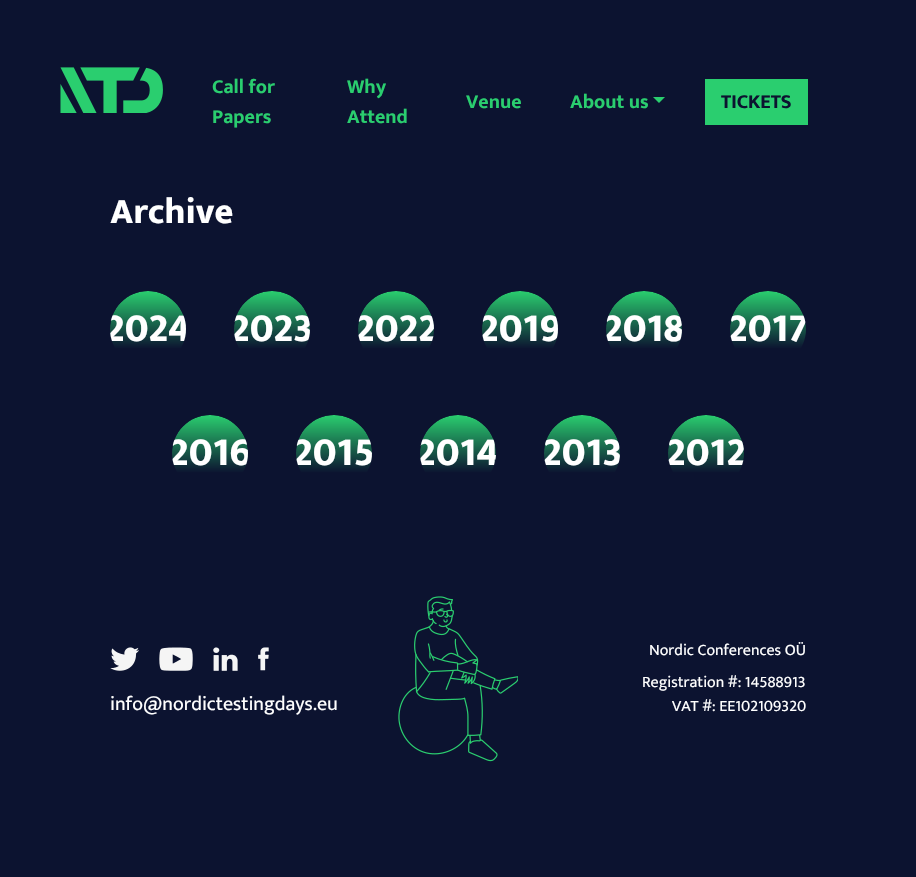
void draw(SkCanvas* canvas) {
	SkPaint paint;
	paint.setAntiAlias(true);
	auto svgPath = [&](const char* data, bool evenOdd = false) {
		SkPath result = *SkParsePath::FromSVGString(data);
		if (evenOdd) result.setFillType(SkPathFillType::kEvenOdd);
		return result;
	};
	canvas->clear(0xff0c1330);
	canvas->drawImageRect(SkImages::DeferredFromEncodedData(SkData::MakeFromFileName("img1.png")), SkRect::MakeXYWH(60, 67, 103, 46), SkSamplingOptions());
	SkFont f1(fontMgr->matchFamilyStyle("Mukta", SkFontStyle::Bold()), 20);
	f1.setSubpixel(true);
	paint.setColor(0xff2ace6f);
	canvas->drawString("Call for", 212, 93, f1, paint);
	canvas->drawString("Papers", 212, 123, f1, paint);
	canvas->drawString("Why", 347, 93, f1, paint);
	canvas->drawString("Attend", 347, 123, f1, paint);
	canvas->drawString("Venue", 466, 108, f1, paint);
	canvas->drawString("About us", 570, 108, f1, paint);
	canvas->drawPath(svgPath("M653 97H665L659 103Z"), paint);
	canvas->drawRect(SkRect::MakeXYWH(705, 79, 103, 46), paint);
	paint.setColor(0xff0c1330);
	canvas->drawString("TICKETS", 721, 108, f1, paint);
	SkFont f2(fontMgr->matchFamilyStyle("Mukta", SkFontStyle(800, SkFontStyle::kNormal_Width, SkFontStyle::kUpright_Slant)), 36);
	f2.setSubpixel(true);
	paint.setColor(0xffffffff);
	canvas->drawString("Archive", 110, 223, f2, paint);
	canvas->save();
	canvas->clipPath(svgPath("M148 291C169 291 186 308 186 329C186 350 169 367 148 367C127 367 110 350 110 329C110 308 127 291 148 291Z"), true);
	{
		const SkColor colors[] = {0xff2ace6f, 0xff0c1330};
		const float stops[] = {0, 0.95};
		const SkPoint ends[] = {{148, 291}, {148, 352}};
		paint.setShader(SkGradientShader::MakeLinear(ends, colors, stops, 2, SkTileMode::kClamp));
		paint.setAlpha(255);
	}
	canvas->drawPath(svgPath("M148 291C169 291 186 308 186 329V352H110V329C110 308 127 291 148 291Z"), paint);
	SkFont f3(fontMgr->matchFamilyStyle("Mukta", SkFontStyle(800, SkFontStyle::kNormal_Width, SkFontStyle::kUpright_Slant)), 40);
	f3.setSubpixel(true);
	paint.setShader(nullptr);
	paint.setColor(0xffffffff);
	canvas->drawString("2024", 105, 341, f3, paint);
	canvas->restore();
	canvas->save();
	canvas->clipPath(svgPath("M272 291C293 291 310 308 310 329C310 350 293 367 272 367C251 367 234 350 234 329C234 308 251 291 272 291Z"), true);
	{
		const SkColor colors[] = {0xff2ace6f, 0xff0c1330};
		const float stops[] = {0, 0.95};
		const SkPoint ends[] = {{272, 291}, {272, 352}};
		paint.setShader(SkGradientShader::MakeLinear(ends, colors, stops, 2, SkTileMode::kClamp));
		paint.setAlpha(255);
	}
	canvas->drawPath(svgPath("M272 291C293 291 310 308 310 329V352H234V329C234 308 251 291 272 291Z"), paint);
	paint.setShader(nullptr);
	paint.setColor(0xffffffff);
	canvas->drawString("2023", 230, 341, f3, paint);
	canvas->restore();
	canvas->save();
	canvas->clipPath(svgPath("M396 291C417 291 434 308 434 329C434 350 417 367 396 367C375 367 358 350 358 329C358 308 375 291 396 291Z"), true);
	{
		const SkColor colors[] = {0xff2ace6f, 0xff0c1330};
		const float stops[] = {0, 0.95};
		const SkPoint ends[] = {{396, 291}, {396, 352}};
		paint.setShader(SkGradientShader::MakeLinear(ends, colors, stops, 2, SkTileMode::kClamp));
		paint.setAlpha(255);
	}
	canvas->drawPath(svgPath("M396 291C417 291 434 308 434 329V352H358V329C358 308 375 291 396 291Z"), paint);
	paint.setShader(nullptr);
	paint.setColor(0xffffffff);
	canvas->drawString("2022", 355, 341, f3, paint);
	canvas->restore();
	canvas->save();
	canvas->clipPath(svgPath("M520 291C541 291 558 308 558 329C558 350 541 367 520 367C499 367 482 350 482 329C482 308 499 291 520 291Z"), true);
	{
		const SkColor colors[] = {0xff2ace6f, 0xff0c1330};
		const float stops[] = {0, 0.95};
		const SkPoint ends[] = {{520, 291}, {520, 352}};
		paint.setShader(SkGradientShader::MakeLinear(ends, colors, stops, 2, SkTileMode::kClamp));
		paint.setAlpha(255);
	}
	canvas->drawPath(svgPath("M520 291C541 291 558 308 558 329V352H482V329C482 308 499 291 520 291Z"), paint);
	paint.setShader(nullptr);
	paint.setColor(0xffffffff);
	canvas->drawString("2019", 479, 341, f3, paint);
	canvas->restore();
	canvas->save();
	canvas->clipPath(svgPath("M644 291C665 291 682 308 682 329C682 350 665 367 644 367C623 367 606 350 606 329C606 308 623 291 644 291Z"), true);
	{
		const SkColor colors[] = {0xff2ace6f, 0xff0c1330};
		const float stops[] = {0, 0.95};
		const SkPoint ends[] = {{644, 291}, {644, 352}};
		paint.setShader(SkGradientShader::MakeLinear(ends, colors, stops, 2, SkTileMode::kClamp));
		paint.setAlpha(255);
	}
	canvas->drawPath(svgPath("M644 291C665 291 682 308 682 329V352H606V329C606 308 623 291 644 291Z"), paint);
	paint.setShader(nullptr);
	paint.setColor(0xffffffff);
	canvas->drawString("2018", 603, 341, f3, paint);
	canvas->restore();
	canvas->save();
	canvas->clipPath(svgPath("M768 291C789 291 806 308 806 329C806 350 789 367 768 367C747 367 730 350 730 329C730 308 747 291 768 291Z"), true);
	{
		const SkColor colors[] = {0xff2ace6f, 0xff0c1330};
		const float stops[] = {0, 0.95};
		const SkPoint ends[] = {{768, 291}, {768, 352}};
		paint.setShader(SkGradientShader::MakeLinear(ends, colors, stops, 2, SkTileMode::kClamp));
		paint.setAlpha(255);
	}
	canvas->drawPath(svgPath("M768 291C789 291 806 308 806 329V352H730V329C730 308 747 291 768 291Z"), paint);
	paint.setShader(nullptr);
	paint.setColor(0xffffffff);
	canvas->drawString("2017", 728, 341, f3, paint);
	canvas->restore();
	canvas->save();
	canvas->clipPath(svgPath("M210 415C231 415 248 432 248 453C248 474 231 491 210 491C189 491 172 474 172 453C172 432 189 415 210 415Z"), true);
	{
		const SkColor colors[] = {0xff2ace6f, 0xff0c1330};
		const float stops[] = {0, 0.95};
		const SkPoint ends[] = {{210, 415}, {210, 476}};
		paint.setShader(SkGradientShader::MakeLinear(ends, colors, stops, 2, SkTileMode::kClamp));
		paint.setAlpha(255);
	}
	canvas->drawPath(svgPath("M210 415C231 415 248 432 248 453V476H172V453C172 432 189 415 210 415Z"), paint);
	paint.setShader(nullptr);
	paint.setColor(0xffffffff);
	canvas->drawString("2016", 169, 465, f3, paint);
	canvas->restore();
	canvas->save();
	canvas->clipPath(svgPath("M334 415C355 415 372 432 372 453C372 474 355 491 334 491C313 491 296 474 296 453C296 432 313 415 334 415Z"), true);
	{
		const SkColor colors[] = {0xff2ace6f, 0xff0c1330};
		const float stops[] = {0, 0.95};
		const SkPoint ends[] = {{334, 415}, {334, 476}};
		paint.setShader(SkGradientShader::MakeLinear(ends, colors, stops, 2, SkTileMode::kClamp));
		paint.setAlpha(255);
	}
	canvas->drawPath(svgPath("M334 415C355 415 372 432 372 453V476H296V453C296 432 313 415 334 415Z"), paint);
	paint.setShader(nullptr);
	paint.setColor(0xffffffff);
	canvas->drawString("2015", 293, 465, f3, paint);
	canvas->restore();
	canvas->save();
	canvas->clipPath(svgPath("M458 415C479 415 496 432 496 453C496 474 479 491 458 491C437 491 420 474 420 453C420 432 437 415 458 415Z"), true);
	{
		const SkColor colors[] = {0xff2ace6f, 0xff0c1330};
		const float stops[] = {0, 0.95};
		const SkPoint ends[] = {{458, 415}, {458, 476}};
		paint.setShader(SkGradientShader::MakeLinear(ends, colors, stops, 2, SkTileMode::kClamp));
		paint.setAlpha(255);
	}
	canvas->drawPath(svgPath("M458 415C479 415 496 432 496 453V476H420V453C420 432 437 415 458 415Z"), paint);
	paint.setShader(nullptr);
	paint.setColor(0xffffffff);
	canvas->drawString("2014", 416, 465, f3, paint);
	canvas->restore();
	canvas->save();
	canvas->clipPath(svgPath("M582 415C603 415 620 432 620 453C620 474 603 491 582 491C561 491 544 474 544 453C544 432 561 415 582 415Z"), true);
	{
		const SkColor colors[] = {0xff2ace6f, 0xff0c1330};
		const float stops[] = {0, 0.95};
		const SkPoint ends[] = {{582, 415}, {582, 476}};
		paint.setShader(SkGradientShader::MakeLinear(ends, colors, stops, 2, SkTileMode::kClamp));
		paint.setAlpha(255);
	}
	canvas->drawPath(svgPath("M582 415C603 415 620 432 620 453V476H544V453C544 432 561 415 582 415Z"), paint);
	paint.setShader(nullptr);
	paint.setColor(0xffffffff);
	canvas->drawString("2013", 542, 465, f3, paint);
	canvas->restore();
	canvas->save();
	canvas->clipPath(svgPath("M706 415C727 415 744 432 744 453C744 474 727 491 706 491C685 491 668 474 668 453C668 432 685 415 706 415Z"), true);
	{
		const SkColor colors[] = {0xff2ace6f, 0xff0c1330};
		const float stops[] = {0, 0.95};
		const SkPoint ends[] = {{706, 415}, {706, 476}};
		paint.setShader(SkGradientShader::MakeLinear(ends, colors, stops, 2, SkTileMode::kClamp));
		paint.setAlpha(255);
	}
	canvas->drawPath(svgPath("M706 415C727 415 744 432 744 453V476H668V453C668 432 685 415 706 415Z"), paint);
	paint.setShader(nullptr);
	paint.setColor(0xffffffff);
	canvas->drawString("2012", 666, 465, f3, paint);
	canvas->restore();
	canvas->drawImageRect(SkImages::DeferredFromEncodedData(SkData::MakeFromFileName("img2.png")), SkRect::MakeXYWH(110, 647, 29, 24), SkSamplingOptions());
	canvas->drawImageRect(SkImages::DeferredFromEncodedData(SkData::MakeFromFileName("img3.png")), SkRect::MakeXYWH(159, 647, 34, 24), SkSamplingOptions());
	canvas->drawImageRect(SkImages::DeferredFromEncodedData(SkData::MakeFromFileName("img4.png")), SkRect::MakeXYWH(213, 647, 25, 24), SkSamplingOptions());
	canvas->drawImageRect(SkImages::DeferredFromEncodedData(SkData::MakeFromFileName("img5.png")), SkRect::MakeXYWH(258, 647, 11, 24), SkSamplingOptions());
	SkFont f4(fontMgr->matchFamilyStyle("Mukta", SkFontStyle::Normal()), 20);
	f4.setSubpixel(true);
	canvas->drawString("info@nordictestingdays.eu", 110, 710, f4, paint);
	canvas->drawImageRect(SkImages::DeferredFromEncodedData(SkData::MakeFromFileName("img6.png")), SkRect::MakeXYWH(398, 596, 120, 166), SkSamplingOptions());
	SkFont f5(fontMgr->matchFamilyStyle("Mukta", SkFontStyle::Normal()), 16);
	f5.setSubpixel(true);
	canvas->drawString("Nordic Conferences OÜ", 649, 655, f5, paint);
	canvas->drawString("Registration #: 14588913", 642, 687, f5, paint);
	canvas->drawString("VAT #: EE102109320", 672, 711, f5, paint);
}
